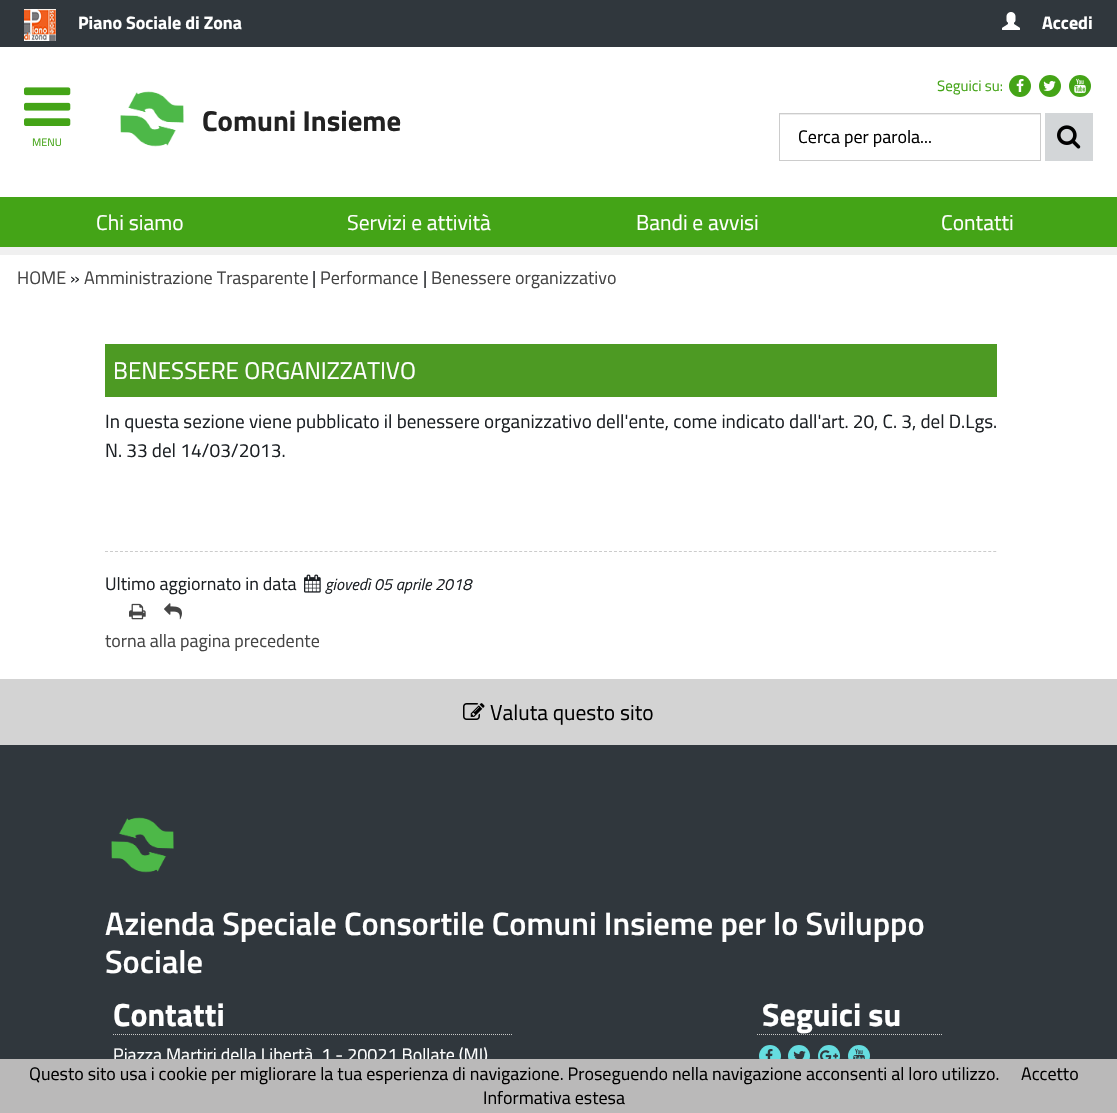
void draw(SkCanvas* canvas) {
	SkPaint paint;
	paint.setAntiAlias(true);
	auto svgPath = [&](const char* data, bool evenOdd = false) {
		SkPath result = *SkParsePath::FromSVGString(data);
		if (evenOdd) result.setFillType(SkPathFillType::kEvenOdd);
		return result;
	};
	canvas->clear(0xfff0f0f0);
	paint.setColor(0xff30373d);
	canvas->drawRect(SkRect::MakeXYWH(0, 0, 1117, 47), paint);
	canvas->drawImageRect(SkImages::DeferredFromEncodedData(SkData::MakeFromFileName("img1.png")), SkRect::MakeXYWH(24, 9, 32, 32), SkSamplingOptions());
	SkFont f1(fontMgr->matchFamilyStyle("Titillium Web", SkFontStyle::Bold()), 18);
	f1.setSubpixel(true);
	paint.setColor(0xffffffff);
	canvas->drawString("Piano Sociale di Zona", 78, 29, f1, paint);
	canvas->drawImageRect(SkImages::DeferredFromEncodedData(SkData::MakeFromFileName("img2.png")), SkRect::MakeXYWH(1002, 12, 18, 18), SkSamplingOptions());
	canvas->drawString("Accedi", 1042, 29, f1, paint);
	canvas->drawRect(SkRect::MakeXYWH(0, 47, 1117, 150), paint);
	canvas->drawImageRect(SkImages::DeferredFromEncodedData(SkData::MakeFromFileName("img3.png")), SkRect::MakeXYWH(120, 91, 64, 56), SkSamplingOptions());
	SkFont f2(fontMgr->matchFamilyStyle("Titillium Web", SkFontStyle::Bold()), 28.75);
	f2.setSubpixel(true);
	paint.setColor(0xff222222);
	canvas->drawString("Comuni Insieme", 202, 131, f2, paint);
	SkFont f3(fontMgr->matchFamilyStyle("Titillium Web", SkFontStyle::Normal()), 15);
	f3.setSubpixel(true);
	paint.setColor(0xff44a417);
	canvas->drawString("Seguici su:", 937, 91, f3, paint);
	canvas->drawCircle(1020, 86, 11, paint);
	canvas->drawImageRect(SkImages::DeferredFromEncodedData(SkData::MakeFromFileName("img4.png")), SkRect::MakeXYWH(1016, 79, 8, 13), SkSamplingOptions());
	canvas->drawCircle(1050, 86, 11, paint);
	canvas->drawImageRect(SkImages::DeferredFromEncodedData(SkData::MakeFromFileName("img5.png")), SkRect::MakeXYWH(1043, 81, 13, 10), SkSamplingOptions());
	canvas->drawCircle(1080, 86, 11, paint);
	canvas->drawImageRect(SkImages::DeferredFromEncodedData(SkData::MakeFromFileName("img6.png")), SkRect::MakeXYWH(1074, 78, 12, 15), SkSamplingOptions());
	paint.setColor(0xffececec);
	canvas->drawRect(SkRect::MakeXYWH(780, 114, 260, 1), paint);
	paint.setStroke(true);
	paint.setStrokeWidth(1);
	paint.setColor(0xffcccccc);
	canvas->drawRect(SkRect::MakeXYWH(779.5, 113.5, 261, 47), paint);
	SkFont f4(fontMgr->matchFamilyStyle("Titillium Web", SkFontStyle::Normal()), 18);
	f4.setSubpixel(true);
	paint.setStroke(false);
	paint.setColor(0xff000000);
	canvas->drawString("Cerca per parola...", 798, 143, f4, paint);
	paint.setColor(0xffd3d6d8);
	canvas->drawRect(SkRect::MakeXYWH(1045, 113, 48, 48), paint);
	canvas->drawImageRect(SkImages::DeferredFromEncodedData(SkData::MakeFromFileName("img7.png")), SkRect::MakeXYWH(1057, 125, 24, 24), SkSamplingOptions());
	canvas->drawImageRect(SkImages::DeferredFromEncodedData(SkData::MakeFromFileName("img8.png")), SkRect::MakeXYWH(24, 87, 47, 39), SkSamplingOptions());
	SkFont f5(fontMgr->matchFamilyStyle("Titillium Web", SkFontStyle::Normal()), 11);
	f5.setSubpixel(true);
	paint.setColor(0xff44a417);
	canvas->drawString("MENU", 32, 146, f5, paint);
	canvas->drawRect(SkRect::MakeXYWH(0, 197, 1117, 50), paint);
	SkFont f6(fontMgr->matchFamilyStyle("Titillium Web", SkFontStyle::Normal()), 21.5);
	f6.setSubpixel(true);
	paint.setColor(0xffffffff);
	canvas->drawString("Chi siamo", 96, 230, f6, paint);
	canvas->drawString("Servizi e attività", 347, 230, f6, paint);
	canvas->drawString("Bandi e avvisi", 636, 230, f6, paint);
	canvas->drawString("Contatti", 941, 230, f6, paint);
	canvas->drawRect(SkRect::MakeXYWH(0, 255, 1117, 424), paint);
	paint.setColor(0xff454545);
	canvas->drawString("HOME", 17, 284, f4, paint);
	paint.setColor(0xff1c2024);
	canvas->drawString("»", 70, 284, f4, paint);
	paint.setColor(0xff454545);
	canvas->drawString("Amministrazione Trasparente", 84, 284, f4, paint);
	paint.setColor(0xff1c2024);
	canvas->drawString("|", 312, 284, f4, paint);
	paint.setColor(0xff454545);
	canvas->drawString("Performance", 320, 284, f4, paint);
	paint.setColor(0xff1c2024);
	canvas->drawString("|", 423, 284, f4, paint);
	paint.setColor(0xff454545);
	canvas->drawString("Benessere organizzativo", 431, 284, f4, paint);
	paint.setColor(0xff4d9a23);
	canvas->drawRect(SkRect::MakeXYWH(105, 344, 892, 53), paint);
	SkFont f7(fontMgr->matchFamilyStyle("Titillium Web", SkFontStyle::Normal()), 24.2);
	f7.setSubpixel(true);
	paint.setColor(0xffffffff);
	canvas->drawString("BENESSERE ORGANIZZATIVO", 113, 379, f7, paint);
	SkFont f8(fontMgr->matchFamilyStyle("Titillium Web", SkFontStyle::Normal()), 19.1);
	f8.setSubpixel(true);
	paint.setColor(0xff1c2024);
	canvas->drawString("In questa sezione viene pubblicato il benessere organizzativo dell'ente, come indicato dall'art. 20, C. 3, del D.Lgs.", 105, 428, f8, paint);
	canvas->drawString("N. 33 del 14/03/2013.", 105, 457, f8, paint);
	paint.setStroke(true);
	paint.setColor(0xffcccccc);
	paint.setPathEffect(SkDashPathEffect::Make({{3, 1.99f}}, 0));
	canvas->drawPath(svgPath("M105 551.5H997"), paint);
	paint.setPathEffect(nullptr);
	paint.setStroke(false);
	paint.setColor(0xff1c2024);
	canvas->drawString("Ultimo aggiornato in data", 105, 590, f4, paint);
	canvas->drawImageRect(SkImages::DeferredFromEncodedData(SkData::MakeFromFileName("img9.png")), SkRect::MakeXYWH(304, 574, 17, 19), SkSamplingOptions());
	SkFont f9(fontMgr->matchFamilyStyle("Titillium Web", SkFontStyle::Italic()), 16.25);
	f9.setSubpixel(true);
	canvas->drawString("giovedì 05 aprile 2018", 325, 590, f9, paint);
	canvas->drawImageRect(SkImages::DeferredFromEncodedData(SkData::MakeFromFileName("img10.png")), SkRect::MakeXYWH(129, 603, 17, 17), SkSamplingOptions());
	canvas->drawImageRect(SkImages::DeferredFromEncodedData(SkData::MakeFromFileName("img11.png")), SkRect::MakeXYWH(164, 603, 18, 17), SkSamplingOptions());
	paint.setColor(0xff454545);
	canvas->drawString("torna alla pagina precedente", 105, 647, f4, paint);
	paint.setColor(0xffd3d3d3);
	canvas->drawRect(SkRect::MakeXYWH(0, 679, 1117, 66), paint);
	canvas->drawImageRect(SkImages::DeferredFromEncodedData(SkData::MakeFromFileName("img12.png")), SkRect::MakeXYWH(463, 703, 22, 17), SkSamplingOptions());
	paint.setColor(0xff000000);
	canvas->drawString("Valuta questo sito", 490, 720, f6, paint);
	paint.setColor(0xff30373d);
	canvas->drawRect(SkRect::MakeXYWH(0, 745, 1117, 314), paint);
	canvas->drawImageRect(SkImages::DeferredFromEncodedData(SkData::MakeFromFileName("img13.png")), SkRect::MakeXYWH(111, 817, 63, 56), SkSamplingOptions());
	SkFont f10(fontMgr->matchFamilyStyle("Titillium Web", SkFontStyle(600, SkFontStyle::kNormal_Width, SkFontStyle::kUpright_Slant)), 32.4);
	f10.setSubpixel(true);
	paint.setColor(0xffffffff);
	canvas->drawString("Azienda Speciale Consortile Comuni Insieme per lo Sviluppo", 105, 935, f10, paint);
	canvas->drawString("Sociale", 105, 973, f10, paint);
	SkFont f11(fontMgr->matchFamilyStyle("Titillium Web", SkFontStyle::Bold()), 32);
	f11.setSubpixel(true);
	canvas->drawString("Contatti", 113, 1026, f11, paint);
	paint.setStroke(true);
	paint.setColor(0xffc8c8c8);
	paint.setPathEffect(SkDashPathEffect::Make({{1, 1}}, 0));
	canvas->drawPath(svgPath("M113 1034.5H513"), paint);
	paint.setPathEffect(nullptr);
	paint.setStroke(false);
	paint.setColor(0xffffffff);
	canvas->drawString("Piazza Martiri della Libertà, 1 - 20021 Bollate (MI)", 113, 1061, f4, paint);
	canvas->drawString("Seguici su", 762, 1026, f11, paint);
	paint.setStroke(true);
	paint.setColor(0xffc8c8c8);
	paint.setPathEffect(SkDashPathEffect::Make({{1, 1}}, 0));
	canvas->drawPath(svgPath("M757 1034.5H942"), paint);
	paint.setPathEffect(nullptr);
	paint.setStroke(false);
	paint.setColor(0xff65dde0);
	canvas->drawCircle(770, 1056, 11, paint);
	canvas->drawImageRect(SkImages::DeferredFromEncodedData(SkData::MakeFromFileName("img14.png")), SkRect::MakeXYWH(765, 1049, 8, 10), SkSamplingOptions());
	canvas->drawCircle(799, 1056, 11, paint);
	canvas->drawImageRect(SkImages::DeferredFromEncodedData(SkData::MakeFromFileName("img15.png")), SkRect::MakeXYWH(793, 1051, 13, 8), SkSamplingOptions());
	canvas->drawCircle(829, 1056, 11, paint);
	canvas->drawImageRect(SkImages::DeferredFromEncodedData(SkData::MakeFromFileName("img16.png")), SkRect::MakeXYWH(820, 1050, 19, 9), SkSamplingOptions());
	canvas->drawCircle(859, 1056, 11, paint);
	canvas->drawImageRect(SkImages::DeferredFromEncodedData(SkData::MakeFromFileName("img17.png")), SkRect::MakeXYWH(853, 1048, 12, 11), SkSamplingOptions());
	paint.setColor(0xffbab9b9);
	canvas->drawRect(SkRect::MakeXYWH(0, 1059, 1117, 54), paint);
	paint.setColor(0xff000000);
	canvas->drawString("Questo sito usa i cookie per migliorare la tua esperienza di navigazione. Proseguendo nella navigazione acconsenti al loro utilizzo.", 29, 1080, f4, paint);
	canvas->drawString("Accetto", 1021, 1080, f4, paint);
	canvas->drawString("Informativa estesa", 483, 1104, f4, paint);
}
